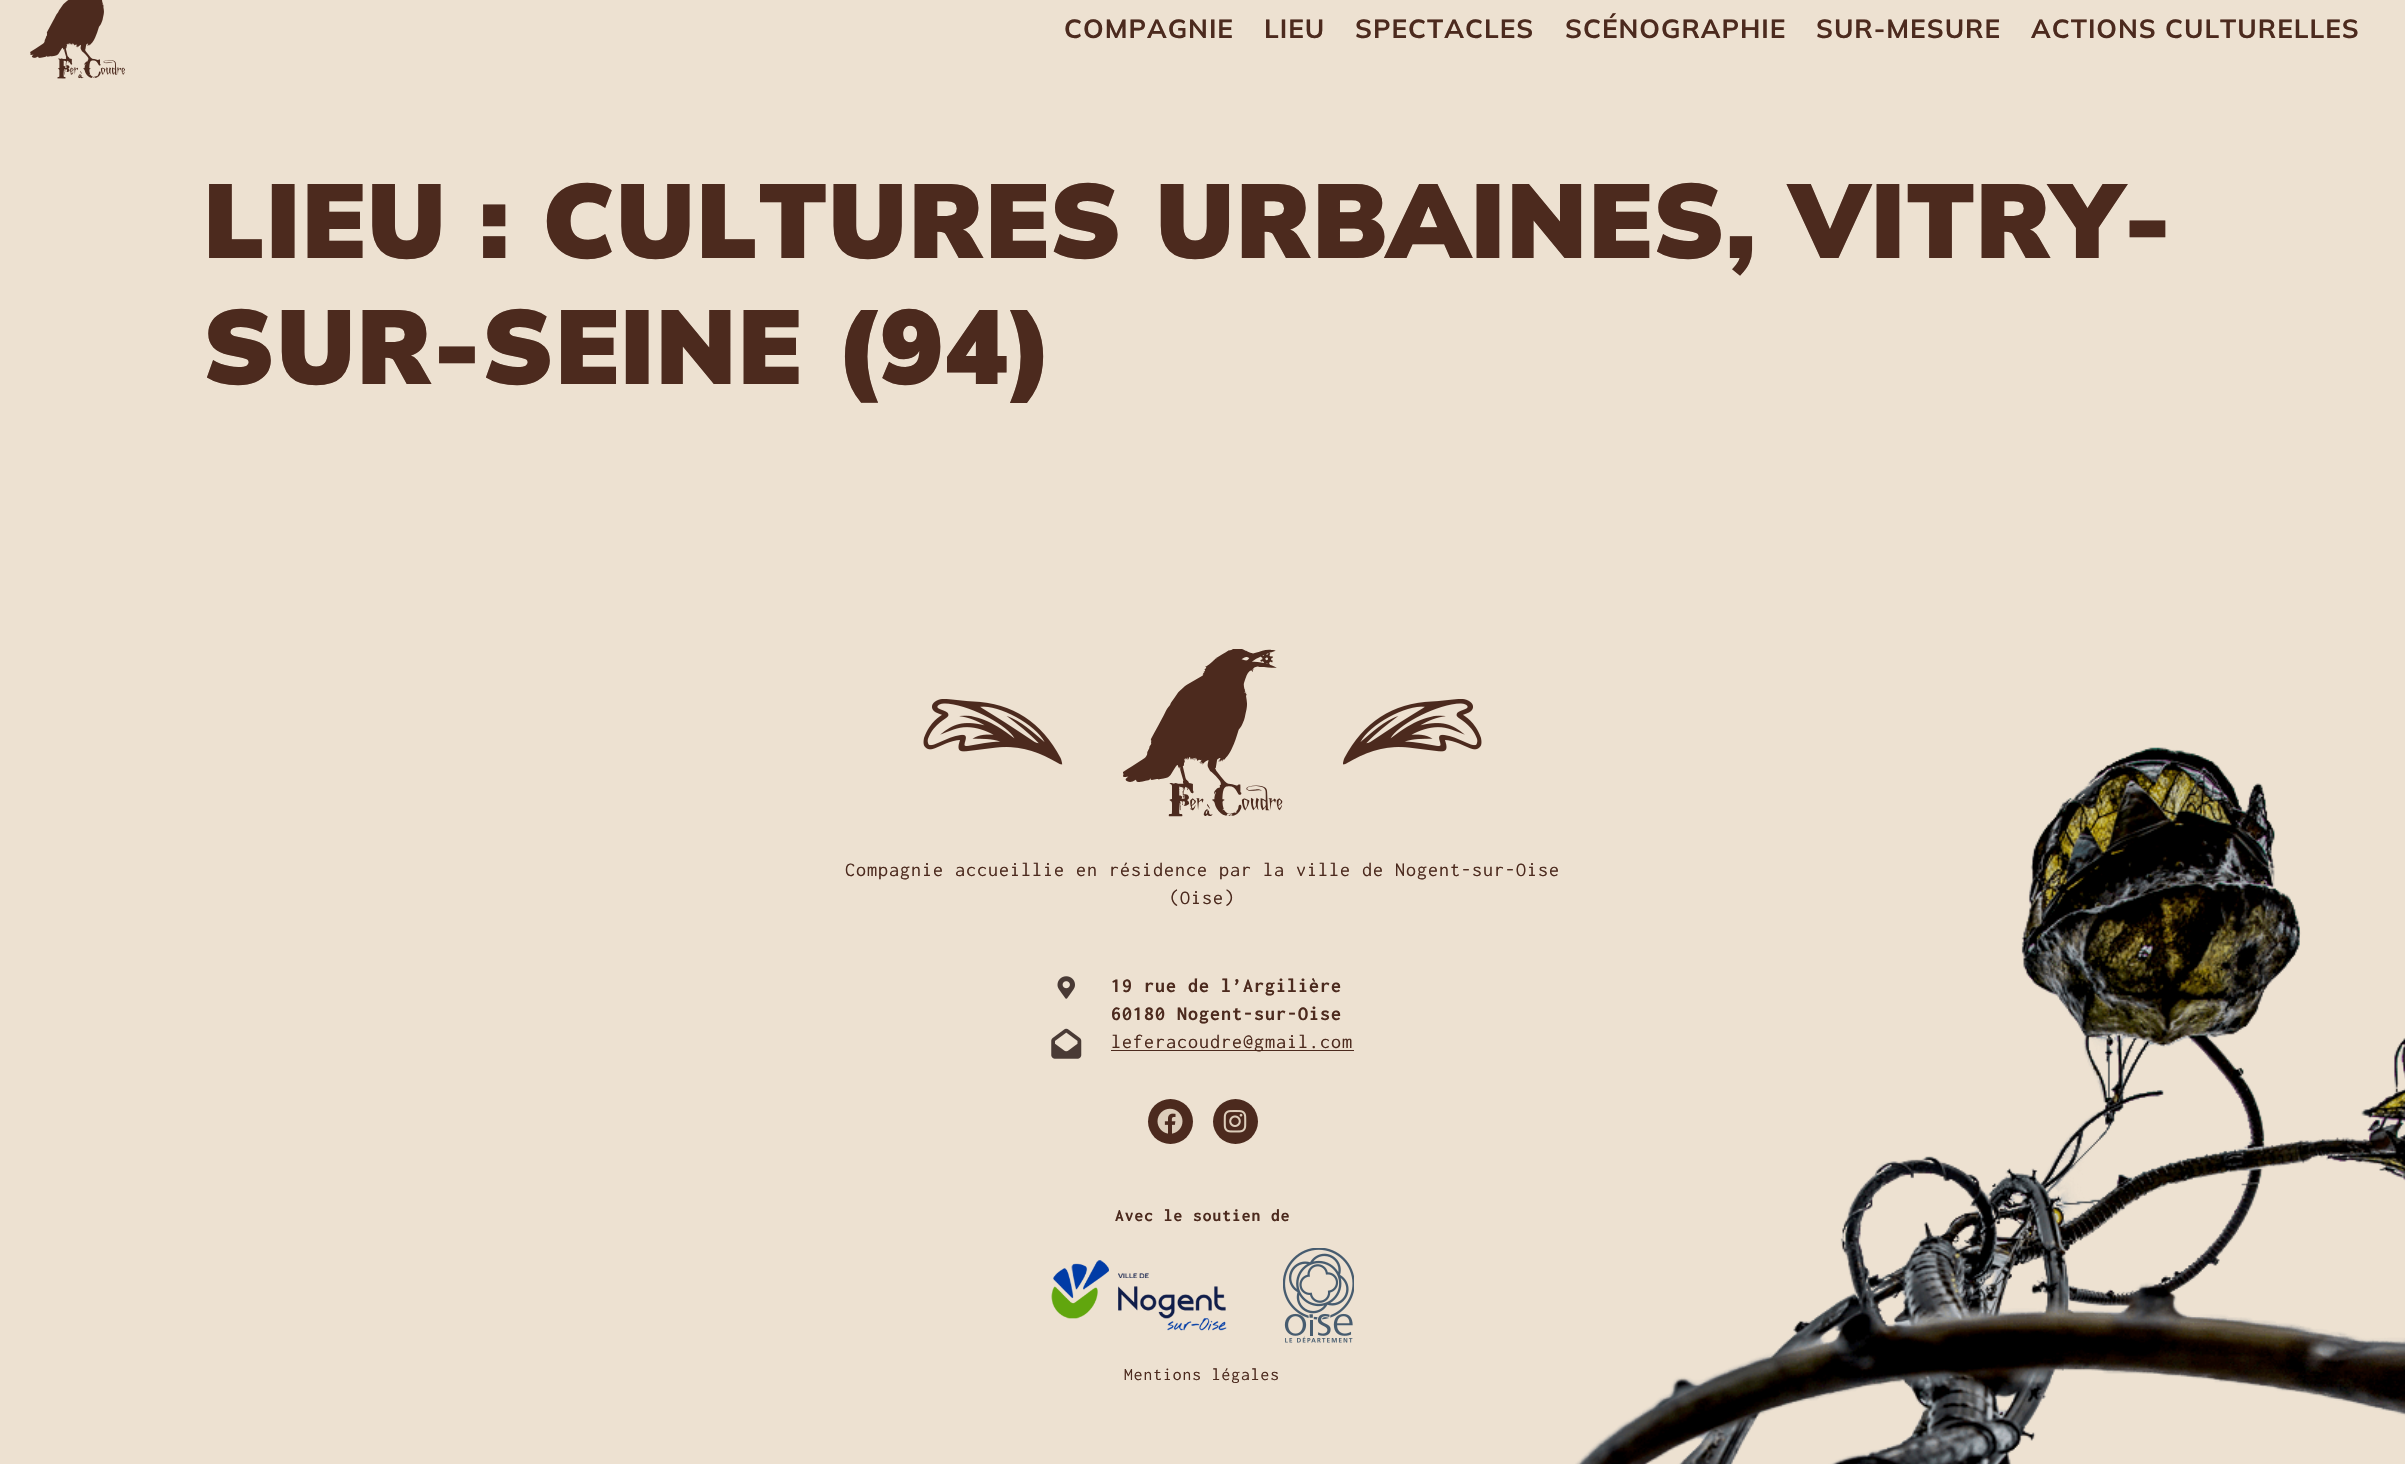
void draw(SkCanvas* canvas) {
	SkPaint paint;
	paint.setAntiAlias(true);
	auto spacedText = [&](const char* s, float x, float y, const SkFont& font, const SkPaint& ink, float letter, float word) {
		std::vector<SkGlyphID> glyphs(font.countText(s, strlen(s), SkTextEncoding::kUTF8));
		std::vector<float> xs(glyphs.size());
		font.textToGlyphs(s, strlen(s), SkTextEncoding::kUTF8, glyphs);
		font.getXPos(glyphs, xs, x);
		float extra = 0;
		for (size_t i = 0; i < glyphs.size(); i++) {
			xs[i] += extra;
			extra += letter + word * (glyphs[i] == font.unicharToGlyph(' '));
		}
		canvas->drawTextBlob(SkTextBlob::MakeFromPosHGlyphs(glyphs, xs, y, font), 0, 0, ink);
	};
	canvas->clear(0xffede1d1);
	canvas->drawImageRect(SkImages::DeferredFromEncodedData(SkData::MakeFromFileName("img1.png")), SkRect::MakeXYWH(30, 0, 95, 79), SkSamplingOptions());
	SkFont f1(fontMgr->matchFamilyStyle("Mulish", SkFontStyle::Bold()), 26.25);
	f1.setSubpixel(true);
	paint.setColor(0xff4c2a1e);
	spacedText("COMPAGNIE", 1064, 38, f1, paint, 1, 0);
	spacedText("LIEU", 1264, 38, f1, paint, 1, 0);
	spacedText("SPECTACLES", 1355, 38, f1, paint, 1, 0);
	spacedText("SCÉNOGRAPHIE", 1565, 38, f1, paint, 1, 0);
	spacedText("SUR-MESURE", 1816, 38, f1, paint, 1, 0);
	spacedText("ACTIONS CULTURELLES", 2031, 38, f1, paint, 1, 0);
	SkFont f2(fontMgr->matchFamilyStyle("Mulish", SkFontStyle(900, SkFontStyle::kNormal_Width, SkFontStyle::kUpright_Slant)), 105);
	f2.setSubpixel(true);
	spacedText("LIEU : CULTURES URBAINES, VITRY-", 203, 258, f2, paint, 1, 0);
	spacedText("SUR-SEINE (94)", 203, 384, f2, paint, 1, 0);
	canvas->drawImageRect(SkImages::DeferredFromEncodedData(SkData::MakeFromFileName("img2.png")), SkRect::MakeXYWH(923, 699, 140, 66), SkSamplingOptions());
	canvas->drawImageRect(SkImages::DeferredFromEncodedData(SkData::MakeFromFileName("img3.png")), SkRect::MakeXYWH(1123, 649, 160, 168), SkSamplingOptions());
	canvas->drawImageRect(SkImages::DeferredFromEncodedData(SkData::MakeFromFileName("img4.png")), SkRect::MakeXYWH(1343, 699, 139, 66), SkSamplingOptions());
	SkFont f3(fontMgr->matchFamilyStyle("Inconsolata", SkFontStyle::Normal()), 20);
	f3.setSubpixel(true);
	spacedText("Compagnie accueillie en résidence par la ville de Nogent-sur-Oise", 845, 876, f3, paint, 1, 0);
	spacedText("(Oise)", 1169, 904, f3, paint, 1, 0);
	canvas->drawImageRect(SkImages::DeferredFromEncodedData(SkData::MakeFromFileName("img5.png")), SkRect::MakeXYWH(1057, 976, 18, 23), SkSamplingOptions());
	SkFont f4(fontMgr->matchFamilyStyle("Inconsolata", SkFontStyle::Bold()), 20);
	f4.setSubpixel(true);
	spacedText("19 rue de l’Argilière", 1111, 992, f4, paint, 1, 0);
	spacedText("60180 Nogent-sur-Oise", 1111, 1020, f4, paint, 1, 0);
	canvas->drawImageRect(SkImages::DeferredFromEncodedData(SkData::MakeFromFileName("img6.png")), SkRect::MakeXYWH(1051, 1028, 31, 31), SkSamplingOptions());
	canvas->drawRect(SkRect::MakeXYWH(1111, 1050, 243, 1), paint);
	spacedText("leferacoudre@gmail.com", 1111, 1048, f3, paint, 1, 0);
	canvas->drawCircle(1170.5, 1121.5, 22.5, paint);
	canvas->drawImageRect(SkImages::DeferredFromEncodedData(SkData::MakeFromFileName("img7.png")), SkRect::MakeXYWH(1157, 1108, 26, 26), SkSamplingOptions());
	canvas->drawCircle(1235.5, 1121.5, 22.5, paint);
	canvas->drawImageRect(SkImages::DeferredFromEncodedData(SkData::MakeFromFileName("img8.png")), SkRect::MakeXYWH(1223, 1110, 24, 23), SkSamplingOptions());
	canvas->drawImageRect(SkImages::DeferredFromEncodedData(SkData::MakeFromFileName("img9.png")), SkRect::MakeXYWH(1575, 747, 830, 717), SkSamplingOptions());
	SkFont f5(fontMgr->matchFamilyStyle("Inconsolata", SkFontStyle::Bold()), 17.5);
	f5.setSubpixel(true);
	spacedText("Avec le soutien de", 1115, 1221, f5, paint, 1, 0);
	canvas->drawImageRect(SkImages::DeferredFromEncodedData(SkData::MakeFromFileName("img10.png")), SkRect::MakeXYWH(1051, 1260, 176, 71), SkSamplingOptions());
	canvas->drawImageRect(SkImages::DeferredFromEncodedData(SkData::MakeFromFileName("img11.png")), SkRect::MakeXYWH(1283, 1248, 71, 95), SkSamplingOptions());
	SkFont f6(fontMgr->matchFamilyStyle("Inconsolata", SkFontStyle::Normal()), 17.5);
	f6.setSubpixel(true);
	spacedText("Mentions légales", 1124, 1380, f6, paint, 1, 0);
}
